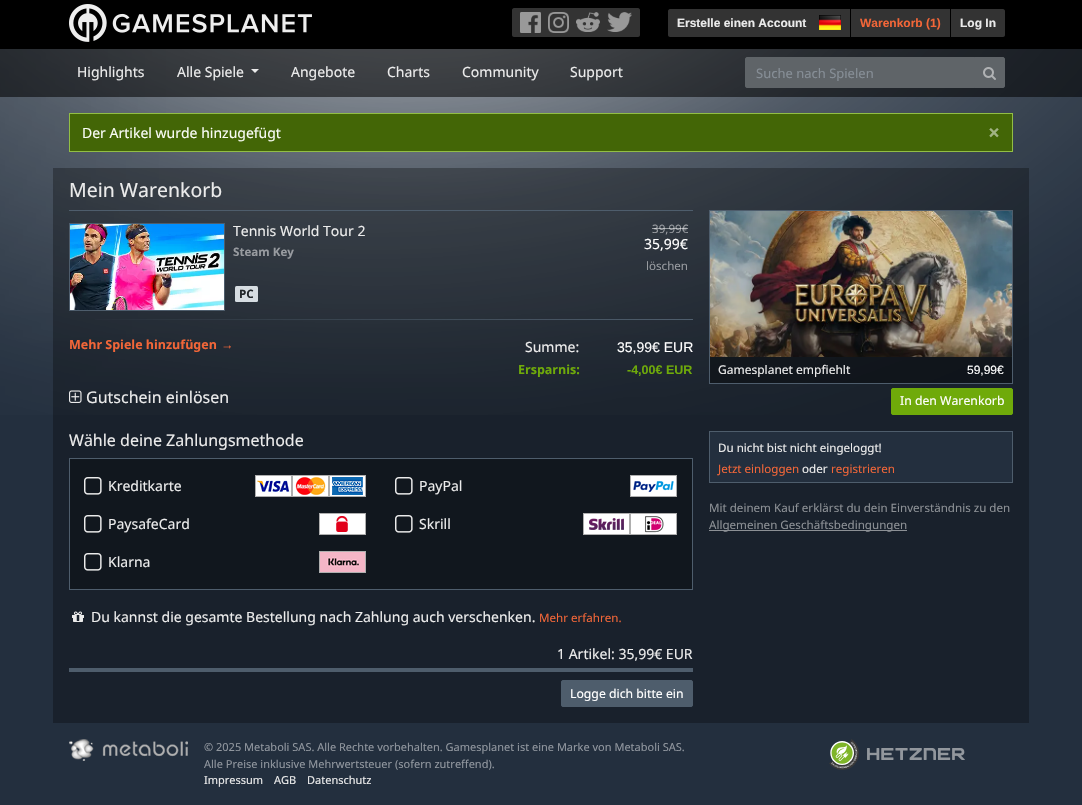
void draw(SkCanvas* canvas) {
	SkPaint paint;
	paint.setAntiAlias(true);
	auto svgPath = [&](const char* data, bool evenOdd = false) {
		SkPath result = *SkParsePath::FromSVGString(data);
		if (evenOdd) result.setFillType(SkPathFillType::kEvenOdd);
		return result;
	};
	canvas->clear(0xff232f3e);
	canvas->drawImageRect(SkImages::DeferredFromEncodedData(SkData::MakeFromFileName("img1.png")), SkRect::MakeXYWH(0, 49, 1082, 366), SkSamplingOptions());
	paint.setColor(0xff000000);
	canvas->drawRect(SkRect::MakeXYWH(0, 0, 1082, 49), paint);
	canvas->drawImageRect(SkImages::DeferredFromEncodedData(SkData::MakeFromFileName("img2.png")), SkRect::MakeXYWH(69, 4, 243, 38), SkSamplingOptions());
	paint.setColor(0xff333333);
	canvas->drawPath(svgPath("M514 8H545V37H514C513 37 512 36 512 35V10C512 9 513 8 514 8Z"), paint);
	canvas->drawImageRect(SkImages::DeferredFromEncodedData(SkData::MakeFromFileName("img3.png")), SkRect::MakeXYWH(520, 12, 21, 21), SkSamplingOptions());
	canvas->drawRect(SkRect::MakeXYWH(545, 8, 58, 29), paint);
	canvas->drawImageRect(SkImages::DeferredFromEncodedData(SkData::MakeFromFileName("img4.png")), SkRect::MakeXYWH(548, 12, 21, 21), SkSamplingOptions());
	canvas->drawPath(svgPath("M603 8H638C639 8 640 9 640 10V35C640 36 639 37 638 37H603Z"), paint);
	canvas->drawImageRect(SkImages::DeferredFromEncodedData(SkData::MakeFromFileName("img5.png")), SkRect::MakeXYWH(607, 12, 25, 20), SkSamplingOptions());
	canvas->drawImageRect(SkImages::DeferredFromEncodedData(SkData::MakeFromFileName("img6.png")), SkRect::MakeXYWH(576, 12, 24, 20), SkSamplingOptions());
	canvas->drawPath(svgPath("M670 9H815V37H670C669 37 668 36 668 35V11C668 10 669 9 670 9Z"), paint);
	SkFont f1(fontMgr->matchFamilyStyle("Liberation Sans", SkFontStyle::Bold()), 12);
	f1.setSubpixel(true);
	paint.setColor(0xffebebeb);
	canvas->drawString("Erstelle einen Account", 677, 27, f1, paint);
	paint.setColor(0xff333333);
	canvas->drawRect(SkRect::MakeXYWH(815, 9, 35, 28), paint);
	canvas->drawImageRect(SkImages::DeferredFromEncodedData(SkData::MakeFromFileName("img7.png")), SkRect::MakeXYWH(819, 15, 22, 15), SkSamplingOptions());
	canvas->drawRect(SkRect::MakeXYWH(851, 9, 99, 28), paint);
	paint.setColor(0xfff26638);
	canvas->drawString("Warenkorb (1)", 860, 27, f1, paint);
	paint.setColor(0xff333333);
	canvas->drawPath(svgPath("M951 9H1003C1004 9 1005 10 1005 11V35C1005 36 1004 37 1003 37H951Z"), paint);
	paint.setColor(0xffebebeb);
	canvas->drawString("Log In", 960, 27, f1, paint);
	paint.setColor(0x8c000000);
	canvas->drawRect(SkRect::MakeXYWH(0, 49, 1082, 48), paint);
	SkFont f2(fontMgr->matchFamilyStyle("Noto Sans", SkFontStyle::Normal()), 14);
	f2.setSubpixel(true);
	paint.setColor(0xffebebeb);
	canvas->drawString("Highlights", 77, 77, f2, paint);
	canvas->drawString("Alle Spiele", 177, 77, f2, paint);
	canvas->drawPath(svgPath("M251 69H259L255 73Z"), paint);
	canvas->drawString("Angebote", 291, 77, f2, paint);
	canvas->drawString("Charts", 387, 77, f2, paint);
	canvas->drawString("Community", 462, 77, f2, paint);
	canvas->drawString("Support", 570, 77, f2, paint);
	paint.setColor(0xff5f6468);
	canvas->drawPath(svgPath("M747 57.5H974.5V87.5H747C746 87.5 745.5 87 745.5 86V59C745.5 58 746 57.5 747 57.5Z"), paint);
	paint.setStroke(true);
	paint.setStrokeWidth(1);
	canvas->drawPath(svgPath("M747 57.5H974.5V87.5H747C746 87.5 745.5 87 745.5 86V59C745.5 58 746 57.5 747 57.5Z"), paint);
	SkFont f3(fontMgr->matchFamilyStyle("Noto Sans", SkFontStyle::Normal()), 13);
	f3.setSubpixel(true);
	paint.setStroke(false);
	paint.setColor(0xff868e96);
	canvas->drawString("Suche nach Spielen", 756, 78, f3, paint);
	paint.setColor(0xff5f6468);
	canvas->drawPath(svgPath("M974.5 57.5H1003C1004 57.5 1004.5 58 1004.5 59V86C1004.5 87 1004 87.5 1003 87.5H974.5Z"), paint);
	paint.setStroke(true);
	canvas->drawPath(svgPath("M974.5 57.5H1003C1004 57.5 1004.5 58 1004.5 59V86C1004.5 87 1004 87.5 1003 87.5H974.5Z"), paint);
	canvas->drawImageRect(SkImages::DeferredFromEncodedData(SkData::MakeFromFileName("img8.png")), SkRect::MakeXYWH(983, 67, 13, 13), SkSamplingOptions());
	paint.setStroke(false);
	paint.setColor(0xff436606);
	canvas->drawRect(SkRect::MakeXYWH(69.5, 113.5, 943, 38), paint);
	paint.setStroke(true);
	paint.setColor(0xff92be45);
	canvas->drawRect(SkRect::MakeXYWH(69.5, 113.5, 943, 38), paint);
	paint.setStroke(false);
	paint.setColor(0xfff9fcf5);
	canvas->drawString("Der Artikel wurde hinzugefügt", 82, 138, f2, paint);
	SkFont f4(fontMgr->matchFamilyStyle("Noto Sans", SkFontStyle::Bold()), 21);
	f4.setSubpixel(true);
	paint.setColor(0xffa1b383);
	canvas->drawString("×", 988, 140, f4, paint);
	paint.setColor(0x4d000000);
	canvas->drawRect(SkRect::MakeXYWH(53, 168, 976, 555), paint);
	SkFont f5(fontMgr->matchFamilyStyle("Noto Sans", SkFontStyle::Normal()), 19.5);
	f5.setSubpixel(true);
	paint.setColor(0xffebebeb);
	canvas->drawString("Mein Warenkorb", 69, 197, f5, paint);
	paint.setColor(0xff4e5d6c);
	canvas->drawRect(SkRect::MakeXYWH(69, 210, 624, 1), paint);
	paint.setStroke(true);
	canvas->drawRect(SkRect::MakeXYWH(69.5, 223.5, 155, 87), paint);
	canvas->drawImageRect(SkImages::DeferredFromEncodedData(SkData::MakeFromFileName("img9.png")), SkRect::MakeXYWH(70, 224, 154, 86), SkSamplingOptions());
	paint.setStroke(false);
	paint.setColor(0xffebebeb);
	canvas->drawString("Tennis World Tour 2", 233, 236, f2, paint);
	SkFont f6(fontMgr->matchFamilyStyle("Noto Sans", SkFontStyle::Normal()), 11.6);
	f6.setSubpixel(true);
	paint.setColor(0xff989ba0);
	canvas->drawString("39,99€", 652, 233, f6, paint);
	paint.setColor(0x80ffffff);
	canvas->drawRect(SkRect::MakeXYWH(652, 228, 36, 1), paint);
	paint.setColor(0xffffffff);
	canvas->drawString("35,99€", 644, 249, f2, paint);
	paint.setColor(0xff989ba0);
	canvas->drawString("löschen", 646, 270, f6, paint);
	SkFont f7(fontMgr->matchFamilyStyle("Noto Sans", SkFontStyle::Bold()), 11.6);
	f7.setSubpixel(true);
	canvas->drawString("Steam Key", 233, 256, f7, paint);
	paint.setColor(0xffd7dde2);
	canvas->drawRoundRect(SkRect::MakeXYWH(235, 286, 23, 16), 1.5, 1.5, paint);
	paint.setColor(0xff212529);
	canvas->drawString("PC", 239, 298, f7, paint);
	{
		const SkColor colors[] = {0xff4e5d6c, 0x004e5d6c};
		const float stops[] = {0, 1};
		const SkPoint ends[] = {{693, 320}, {69, 320}};
		paint.setShader(SkGradientShader::MakeLinear(ends, colors, stops, 2, SkTileMode::kClamp));
		paint.setAlpha(255);
	}
	canvas->drawRect(SkRect::MakeXYWH(95, 319, 598, 1), paint);
	SkFont f8(fontMgr->matchFamilyStyle("Noto Sans", SkFontStyle::Bold()), 12.5);
	f8.setSubpixel(true);
	paint.setShader(nullptr);
	paint.setColor(0xfff26638);
	canvas->drawString("Mehr Spiele hinzufügen", 69, 349, f8, paint);
	SkFont f9(fontMgr->matchFamilyStyle("Liberation Sans", SkFontStyle::Bold()), 12.5);
	f9.setSubpixel(true);
	canvas->drawString("→", 221, 349, f9, paint);
	paint.setColor(0xffebebeb);
	canvas->drawString("Summe:", 525, 352, f2, paint);
	SkFont f10(fontMgr->matchFamilyStyle("Liberation Sans", SkFontStyle::Normal()), 14);
	f10.setSubpixel(true);
	paint.setColor(0xffffffff);
	canvas->drawString("35,99€ EUR", 617, 352, f10, paint);
	paint.setColor(0xff6faa0a);
	canvas->drawString("Ersparnis:", 518, 374, f8, paint);
	canvas->drawString("-4,00€ EUR", 627, 374, f9, paint);
	canvas->drawImageRect(SkImages::DeferredFromEncodedData(SkData::MakeFromFileName("img10.png")), SkRect::MakeXYWH(69, 390, 13, 13), SkSamplingOptions());
	SkFont f11(fontMgr->matchFamilyStyle("Noto Sans", SkFontStyle::Normal()), 16);
	f11.setSubpixel(true);
	paint.setColor(0xffebebeb);
	canvas->drawString("Gutschein einlösen", 86, 403, f11, paint);
	canvas->drawString("Wähle deine Zahlungsmethode", 69, 446, f11, paint);
	paint.setColor(0xff11171e);
	canvas->drawRect(SkRect::MakeXYWH(69.5, 458.5, 623, 131), paint);
	paint.setStroke(true);
	paint.setColor(0xff4e5d6c);
	canvas->drawRect(SkRect::MakeXYWH(69.5, 458.5, 623, 131), paint);
	canvas->drawImageRect(SkImages::DeferredFromEncodedData(SkData::MakeFromFileName("img11.png")), SkRect::MakeXYWH(84, 477, 18, 18), SkSamplingOptions());
	paint.setStroke(false);
	paint.setColor(0xffebebeb);
	canvas->drawString("Kreditkarte", 108, 491, f2, paint);
	canvas->drawImageRect(SkImages::DeferredFromEncodedData(SkData::MakeFromFileName("img12.png")), SkRect::MakeXYWH(255, 475, 111, 22), SkSamplingOptions());
	canvas->drawImageRect(SkImages::DeferredFromEncodedData(SkData::MakeFromFileName("img11.png")), SkRect::MakeXYWH(395, 477, 18, 18), SkSamplingOptions());
	canvas->drawString("PayPal", 419, 491, f2, paint);
	canvas->drawImageRect(SkImages::DeferredFromEncodedData(SkData::MakeFromFileName("img13.png")), SkRect::MakeXYWH(630, 475, 47, 22), SkSamplingOptions());
	canvas->drawImageRect(SkImages::DeferredFromEncodedData(SkData::MakeFromFileName("img11.png")), SkRect::MakeXYWH(84, 515, 18, 18), SkSamplingOptions());
	canvas->drawString("PaysafeCard", 108, 529, f2, paint);
	canvas->drawImageRect(SkImages::DeferredFromEncodedData(SkData::MakeFromFileName("img14.png")), SkRect::MakeXYWH(319, 513, 47, 22), SkSamplingOptions());
	canvas->drawImageRect(SkImages::DeferredFromEncodedData(SkData::MakeFromFileName("img11.png")), SkRect::MakeXYWH(395, 515, 18, 18), SkSamplingOptions());
	canvas->drawString("Skrill", 419, 529, f2, paint);
	canvas->drawImageRect(SkImages::DeferredFromEncodedData(SkData::MakeFromFileName("img15.png")), SkRect::MakeXYWH(583, 513, 94, 22), SkSamplingOptions());
	canvas->drawImageRect(SkImages::DeferredFromEncodedData(SkData::MakeFromFileName("img11.png")), SkRect::MakeXYWH(84, 553, 18, 18), SkSamplingOptions());
	canvas->drawString("Klarna", 108, 567, f2, paint);
	canvas->drawImageRect(SkImages::DeferredFromEncodedData(SkData::MakeFromFileName("img16.png")), SkRect::MakeXYWH(319, 551, 47, 22), SkSamplingOptions());
	canvas->drawImageRect(SkImages::DeferredFromEncodedData(SkData::MakeFromFileName("img17.png")), SkRect::MakeXYWH(72, 611, 12, 11), SkSamplingOptions());
	canvas->drawString("Du kannst die gesamte Bestellung nach Zahlung auch verschenken.", 91, 622, f2, paint);
	paint.setColor(0xfff26638);
	canvas->drawString("Mehr erfahren.", 539, 622, f6, paint);
	paint.setColor(0xffebebeb);
	canvas->drawString("1 Artikel: 35,99€ EUR", 557, 659, f2, paint);
	paint.setColor(0xff4e5d6c);
	canvas->drawRect(SkRect::MakeXYWH(69, 668, 624, 4), paint);
	canvas->drawRoundRect(SkRect::MakeXYWH(561.5, 680.5, 131, 26), 1.5, 1.5, paint);
	paint.setStroke(true);
	canvas->drawRoundRect(SkRect::MakeXYWH(561.5, 680.5, 131, 26), 1.5, 1.5, paint);
	SkFont f12(fontMgr->matchFamilyStyle("Noto Sans", SkFontStyle::Normal()), 12.25);
	f12.setSubpixel(true);
	paint.setStroke(false);
	paint.setColor(0xffffffff);
	canvas->drawString("Logge dich bitte ein", 570, 698, f12, paint);
	paint.setColor(0x66000000);
	canvas->drawRect(SkRect::MakeXYWH(710, 357, 302, 26), paint);
	paint.setStroke(true);
	paint.setColor(0xff4e5d6c);
	canvas->drawRect(SkRect::MakeXYWH(709.5, 210.5, 303, 173), paint);
	canvas->drawImageRect(SkImages::DeferredFromEncodedData(SkData::MakeFromFileName("img18.png")), SkRect::MakeXYWH(710, 211, 302, 146), SkSamplingOptions());
	SkFont f13(fontMgr->matchFamilyStyle("Noto Sans", SkFontStyle::Normal()), 12);
	f13.setSubpixel(true);
	paint.setStroke(false);
	paint.setColor(0xffebebeb);
	canvas->drawString("Gamesplanet empfiehlt", 718, 374, f13, paint);
	SkFont f14(fontMgr->matchFamilyStyle("Liberation Sans", SkFontStyle::Normal()), 12);
	f14.setSubpixel(true);
	paint.setColor(0xffffffff);
	canvas->drawString("59,99€", 967, 374, f14, paint);
	paint.setColor(0xff6faa0a);
	canvas->drawRoundRect(SkRect::MakeXYWH(891.5, 388.5, 121, 26), 1.5, 1.5, paint);
	paint.setStroke(true);
	canvas->drawRoundRect(SkRect::MakeXYWH(891.5, 388.5, 121, 26), 1.5, 1.5, paint);
	paint.setStroke(false);
	paint.setColor(0xffffffff);
	canvas->drawString("In den Warenkorb", 900, 405, f12, paint);
	paint.setColor(0xff232f3e);
	canvas->drawRect(SkRect::MakeXYWH(709.5, 431.5, 303, 51), paint);
	paint.setStroke(true);
	paint.setColor(0xff4e5d6c);
	canvas->drawRect(SkRect::MakeXYWH(709.5, 431.5, 303, 51), paint);
	paint.setStroke(false);
	paint.setColor(0xffebebeb);
	canvas->drawString("Du nicht bist nicht eingeloggt!", 718, 452, f6, paint);
	paint.setColor(0xfff26638);
	canvas->drawString("Jetzt einloggen", 718, 473, f6, paint);
	paint.setColor(0xffebebeb);
	canvas->drawString("oder", 802, 473, f6, paint);
	paint.setColor(0xfff26638);
	canvas->drawString("registrieren", 831, 473, f6, paint);
	paint.setColor(0xff8c9095);
	canvas->drawString("Mit deinem Kauf erklärst du dein Einverständnis zu den", 709, 512, f6, paint);
	canvas->drawRect(SkRect::MakeXYWH(709, 530, 198, 1), paint);
	canvas->drawString("Allgemeinen Geschäftsbedingungen", 709, 529, f6, paint);
	canvas->drawImageRect(SkImages::DeferredFromEncodedData(SkData::MakeFromFileName("img19.png")), SkRect::MakeXYWH(69, 739, 119, 22), SkSamplingOptions());
	SkFont f15(fontMgr->matchFamilyStyle("Noto Sans", SkFontStyle::Normal()), 11);
	f15.setSubpixel(true);
	paint.setColor(0xff91979f);
	canvas->drawString("© 2025 Metaboli SAS. Alle Rechte vorbehalten. Gamesplanet ist eine Marke von Metaboli SAS.", 204, 751, f15, paint);
	canvas->drawString("Alle Preise inklusive Mehrwertsteuer (sofern zutreffend).", 204, 768, f15, paint);
	paint.setColor(0xffebebeb);
	canvas->drawString("Impressum", 204, 784, f15, paint);
	canvas->drawString("AGB", 274, 784, f15, paint);
	canvas->drawString("Datenschutz", 307, 784, f15, paint);
	canvas->drawImageRect(SkImages::DeferredFromEncodedData(SkData::MakeFromFileName("img20.png")), SkRect::MakeXYWH(829, 739, 30, 31), SkSamplingOptions());
	canvas->drawImageRect(SkImages::DeferredFromEncodedData(SkData::MakeFromFileName("img21.png")), SkRect::MakeXYWH(867, 748, 98, 12), SkSamplingOptions());
}
